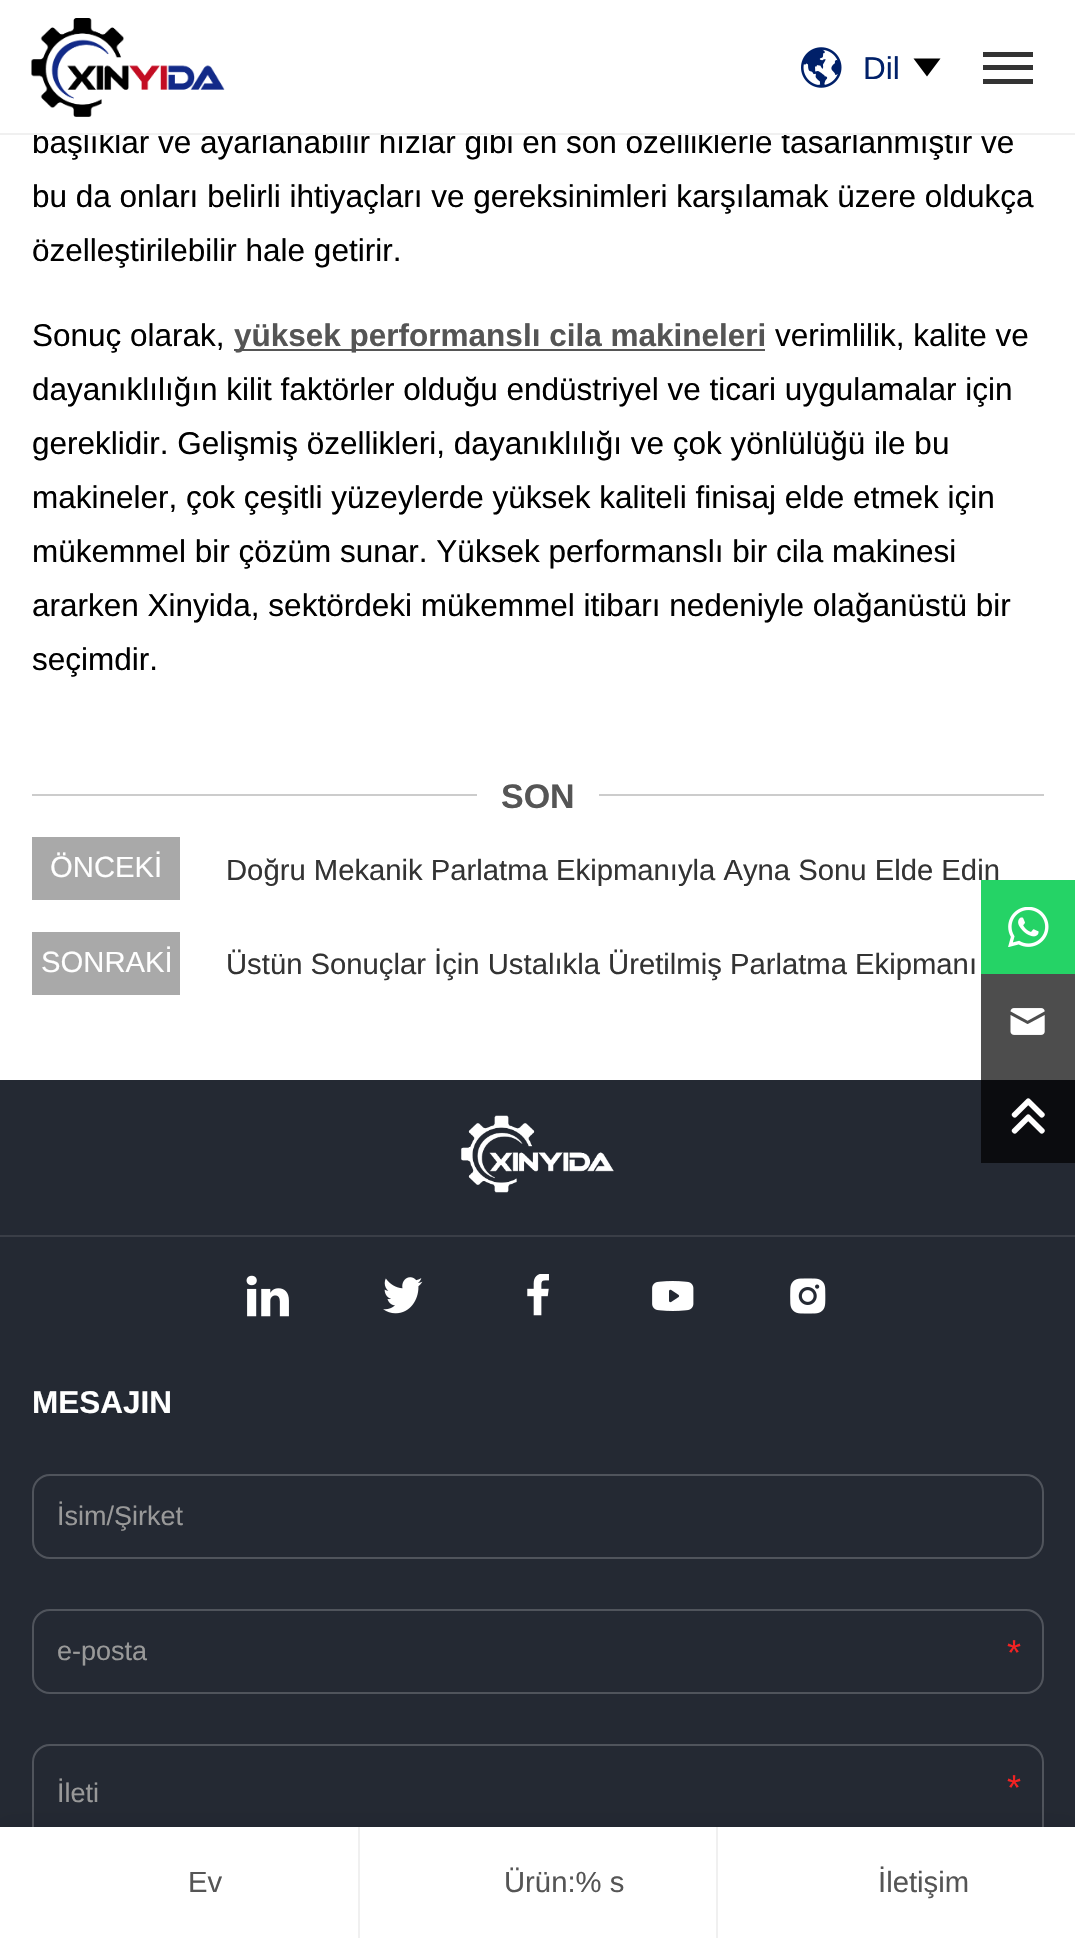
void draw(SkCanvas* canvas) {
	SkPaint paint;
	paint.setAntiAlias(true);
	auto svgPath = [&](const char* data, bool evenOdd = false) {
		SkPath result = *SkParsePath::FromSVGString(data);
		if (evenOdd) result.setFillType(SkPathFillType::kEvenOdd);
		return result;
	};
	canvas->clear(0xffffffff);
	paint.setColor(0xff4d4d4d);
	canvas->drawRect(SkRect::MakeXYWH(981, 974, 94, 106), paint);
	SkFont f1(fontMgr->matchFamilyStyle("Liberation Sans", SkFontStyle::Normal()), 31.5);
	f1.setSubpixel(true);
	paint.setColor(0xff000000);
	canvas->drawString("başlıklar ve ayarlanabilir hızlar gibi en son özelliklerle tasarlanmıştır ve", 32, 153, f1, paint);
	paint.setColor(0xffffffff);
	canvas->drawRect(SkRect::MakeXYWH(34, 130, 916, 3), paint);
	canvas->drawImageRect(SkImages::DeferredFromEncodedData(SkData::MakeFromFileName("img1.png")), SkRect::MakeXYWH(31, 18, 194, 99), SkSamplingOptions());
	canvas->drawImageRect(SkImages::DeferredFromEncodedData(SkData::MakeFromFileName("img2.png")), SkRect::MakeXYWH(801, 47, 41, 41), SkSamplingOptions());
	paint.setColor(0xff002069);
	canvas->drawString("Dil", 863, 79, f1, paint);
	paint.setColor(0xff000000);
	canvas->drawPath(svgPath("M913.5 58.5H940.5L927 76.5Z"), paint);
	paint.setColor(0xff333333);
	canvas->drawRect(SkRect::MakeXYWH(983, 65, 50, 5), paint);
	canvas->drawRect(SkRect::MakeXYWH(983, 52, 50, 5), paint);
	canvas->drawRect(SkRect::MakeXYWH(983, 79, 50, 5), paint);
	paint.setColor(0xfff0f0f0);
	canvas->drawRect(SkRect::MakeXYWH(0, 133, 1075, 2), paint);
	paint.setColor(0xff000000);
	canvas->drawString("bu da onları belirli ihtiyaçları ve gereksinimleri karşılamak üzere oldukça", 32, 207, f1, paint);
	canvas->drawString("özelleştirilebilir hale getirir.", 32, 261, f1, paint);
	canvas->drawString("Sonuç olarak,", 32, 346, f1, paint);
	paint.setColor(0xff555555);
	canvas->drawRect(SkRect::MakeXYWH(234, 349, 531, 2), paint);
	SkFont f2(fontMgr->matchFamilyStyle("Liberation Sans", SkFontStyle::Bold()), 31.5);
	f2.setSubpixel(true);
	canvas->drawString("yüksek performanslı cila makineleri", 234, 346, f2, paint);
	paint.setColor(0xff000000);
	canvas->drawString("verimlilik, kalite ve", 775, 346, f1, paint);
	canvas->drawString("dayanıklılığın kilit faktörler olduğu endüstriyel ve ticari uygulamalar için", 32, 400, f1, paint);
	canvas->drawString("gereklidir. Gelişmiş özellikleri, dayanıklılığı ve çok yönlülüğü ile bu", 32, 454, f1, paint);
	canvas->drawString("makineler, çok çeşitli yüzeylerde yüksek kaliteli finisaj elde etmek için", 32, 508, f1, paint);
	canvas->drawString("mükemmel bir çözüm sunar. Yüksek performanslı bir cila makinesi", 32, 562, f1, paint);
	canvas->drawString("ararken Xinyida, sektördeki mükemmel itibarı nedeniyle olağanüstü bir", 32, 616, f1, paint);
	canvas->drawString("seçimdir.", 32, 670, f1, paint);
	paint.setColor(0xffcccccc);
	canvas->drawRect(SkRect::MakeXYWH(32, 794, 445, 2), paint);
	SkFont f3(fontMgr->matchFamilyStyle("Liberation Sans", SkFontStyle::Bold()), 34);
	f3.setSubpixel(true);
	paint.setColor(0xff555555);
	canvas->drawString("SON", 501, 808, f3, paint);
	paint.setColor(0xffcccccc);
	canvas->drawRect(SkRect::MakeXYWH(599, 794, 445, 2), paint);
	paint.setColor(0xffa9a9a9);
	canvas->drawRect(SkRect::MakeXYWH(32, 837, 148, 63), paint);
	SkFont f4(fontMgr->matchFamilyStyle("Liberation Sans", SkFontStyle::Normal()), 29.25);
	f4.setSubpixel(true);
	paint.setColor(0xffffffff);
	canvas->drawString("ÖNCEKİ", 50, 877, f4, paint);
	paint.setColor(0xff333333);
	canvas->drawString("Doğru Mekanik Parlatma Ekipmanıyla Ayna Sonu Elde Edin", 226, 880, f4, paint);
	paint.setColor(0xffa9a9a9);
	canvas->drawRect(SkRect::MakeXYWH(32, 932, 148, 63), paint);
	paint.setColor(0xffffffff);
	canvas->drawString("SONRAKİ", 41, 972, f4, paint);
	paint.setColor(0xff333333);
	canvas->drawString("Üstün Sonuçlar İçin Ustalıkla Üretilmiş Parlatma Ekipmanı", 226, 974, f4, paint);
	paint.setColor(0xff25d366);
	canvas->drawRect(SkRect::MakeXYWH(981, 880, 94, 94), paint);
	canvas->drawImageRect(SkImages::DeferredFromEncodedData(SkData::MakeFromFileName("img3.png")), SkRect::MakeXYWH(1008, 907, 41, 40), SkSamplingOptions());
	canvas->drawImageRect(SkImages::DeferredFromEncodedData(SkData::MakeFromFileName("img4.png")), SkRect::MakeXYWH(1010, 1008, 35, 27), SkSamplingOptions());
	paint.setColor(0xff242933);
	canvas->drawRect(SkRect::MakeXYWH(0, 1080, 1075, 747), paint);
	paint.setColor(0xff0b0c0f);
	canvas->drawRect(SkRect::MakeXYWH(981, 1080, 94, 83), paint);
	canvas->drawImageRect(SkImages::DeferredFromEncodedData(SkData::MakeFromFileName("img5.png")), SkRect::MakeXYWH(1011, 1098, 34, 36), SkSamplingOptions());
	paint.setColor(0xff3a3e47);
	canvas->drawRect(SkRect::MakeXYWH(0, 1235, 1075, 2), paint);
	canvas->drawImageRect(SkImages::DeferredFromEncodedData(SkData::MakeFromFileName("img6.png")), SkRect::MakeXYWH(461, 1115, 153, 78), SkSamplingOptions());
	canvas->drawImageRect(SkImages::DeferredFromEncodedData(SkData::MakeFromFileName("img7.png")), SkRect::MakeXYWH(246, 1275, 43, 42), SkSamplingOptions());
	canvas->drawImageRect(SkImages::DeferredFromEncodedData(SkData::MakeFromFileName("img8.png")), SkRect::MakeXYWH(383, 1277, 40, 37), SkSamplingOptions());
	canvas->drawImageRect(SkImages::DeferredFromEncodedData(SkData::MakeFromFileName("img9.png")), SkRect::MakeXYWH(527, 1274, 22, 42), SkSamplingOptions());
	canvas->drawImageRect(SkImages::DeferredFromEncodedData(SkData::MakeFromFileName("img10.png")), SkRect::MakeXYWH(652, 1281, 42, 30), SkSamplingOptions());
	canvas->drawImageRect(SkImages::DeferredFromEncodedData(SkData::MakeFromFileName("img11.png")), SkRect::MakeXYWH(790, 1278, 36, 36), SkSamplingOptions());
	paint.setColor(0xffffffff);
	canvas->drawString("MESAJIN", 32, 1413, f2, paint);
	paint.setStroke(true);
	paint.setStrokeWidth(2);
	paint.setColor(0xff50545c);
	canvas->drawRoundRect(SkRect::MakeXYWH(33, 1475, 1010, 83), 17, 17, paint);
	SkFont f5(fontMgr->matchFamilyStyle("Liberation Sans", SkFontStyle::Normal()), 27);
	f5.setSubpixel(true);
	paint.setStroke(false);
	paint.setColor(0xff999999);
	canvas->drawString("İsim/Şirket", 57, 1525, f5, paint);
	paint.setStroke(true);
	paint.setColor(0xff50545c);
	canvas->drawRoundRect(SkRect::MakeXYWH(33, 1610, 1010, 83), 17, 17, paint);
	paint.setStroke(false);
	paint.setColor(0xff999999);
	canvas->drawString("e-posta", 57, 1660, f5, paint);
	SkFont f6(fontMgr->matchFamilyStyle("Liberation Sans", SkFontStyle::Normal()), 36);
	f6.setSubpixel(true);
	paint.setColor(0xfff32222);
	canvas->drawString("*", 1007, 1665, f6, paint);
	paint.setStroke(true);
	paint.setColor(0xff50545c);
	canvas->drawRoundRect(SkRect::MakeXYWH(33, 1745, 1010, 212), 17, 17, paint);
	paint.setStroke(false);
	paint.setColor(0xff999999);
	canvas->drawString("İleti", 57, 1802, f5, paint);
	paint.setColor(0xfff32222);
	canvas->drawString("*", 1007, 1800, f6, paint);
	paint.setColor(0x1a000000);
	paint.setMaskFilter(SkMaskFilter::MakeBlur(kNormal_SkBlurStyle, 11));
	canvas->drawRect(SkRect::MakeXYWH(0, 1827, 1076, 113), paint);
	paint.setMaskFilter(nullptr);
	paint.setColor(0xffffffff);
	canvas->drawRect(SkRect::MakeXYWH(0, 1827, 1075, 111), paint);
	paint.setColor(0xfff0f0f0);
	canvas->drawRect(SkRect::MakeXYWH(358, 1827, 2, 111), paint);
	paint.setColor(0xff555555);
	canvas->drawString("Ev", 188, 1892, f4, paint);
	paint.setColor(0xfff0f0f0);
	canvas->drawRect(SkRect::MakeXYWH(716, 1827, 2, 111), paint);
	paint.setColor(0xff555555);
	canvas->drawString("Ürün:% s", 504, 1892, f4, paint);
	canvas->drawString("İletişim", 878, 1892, f4, paint);
}
